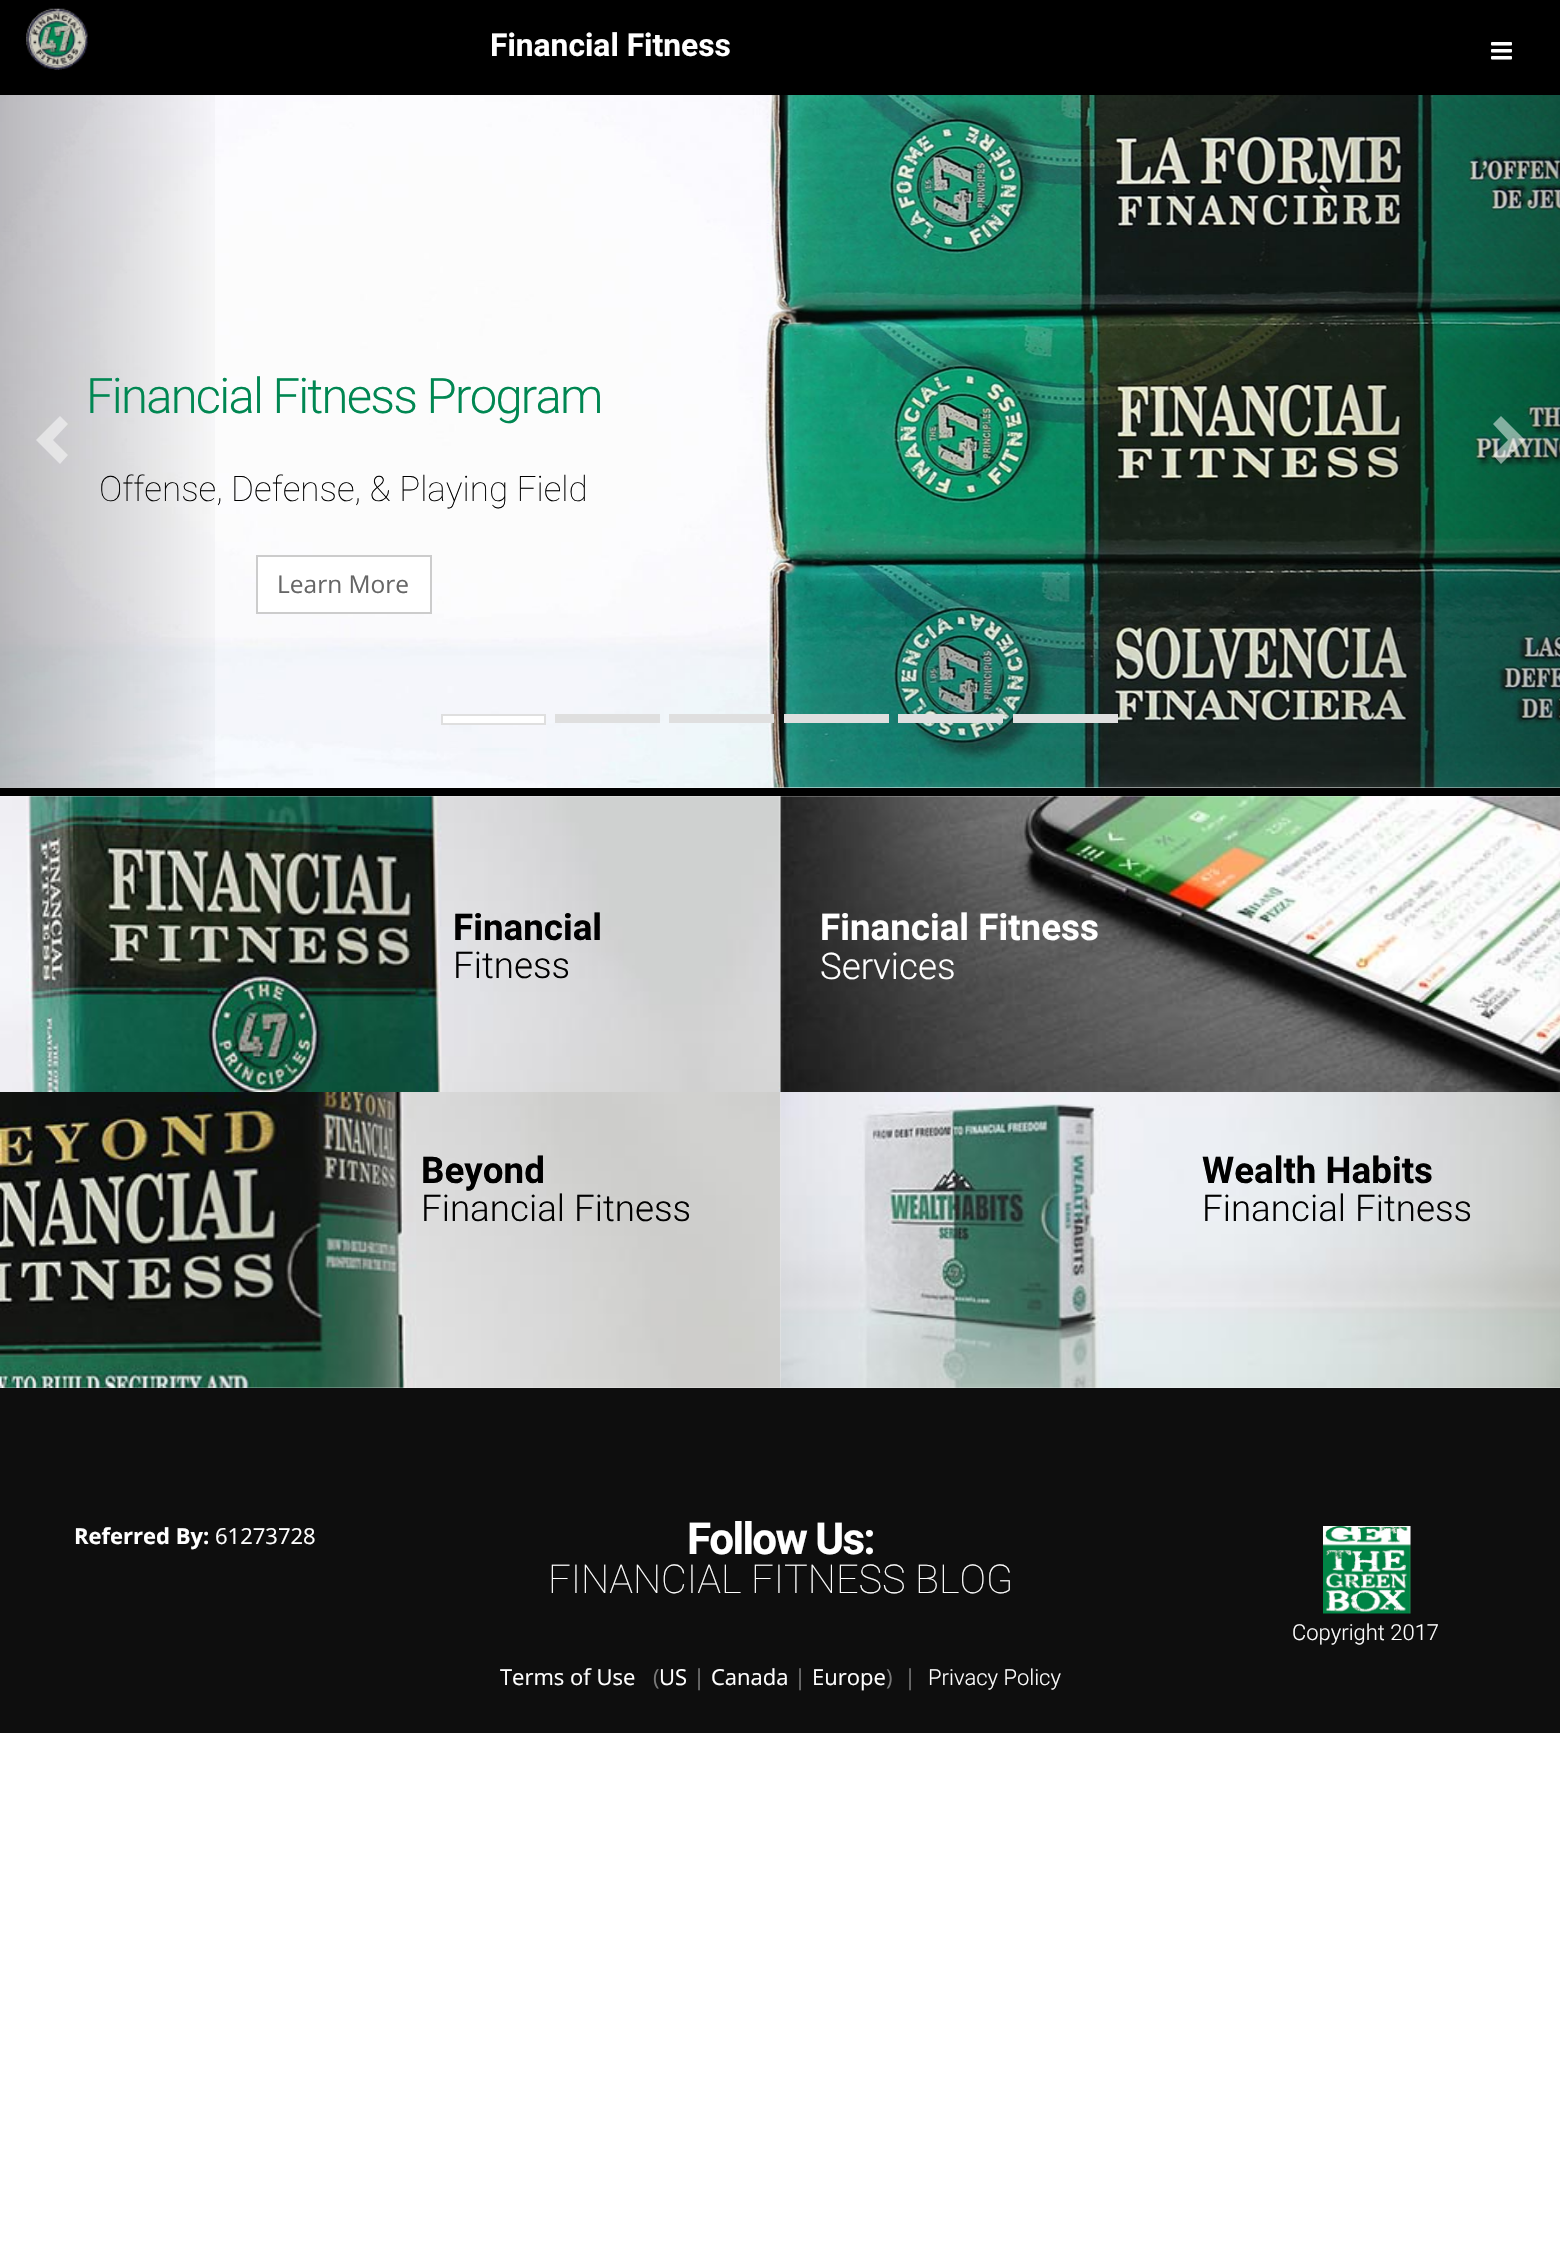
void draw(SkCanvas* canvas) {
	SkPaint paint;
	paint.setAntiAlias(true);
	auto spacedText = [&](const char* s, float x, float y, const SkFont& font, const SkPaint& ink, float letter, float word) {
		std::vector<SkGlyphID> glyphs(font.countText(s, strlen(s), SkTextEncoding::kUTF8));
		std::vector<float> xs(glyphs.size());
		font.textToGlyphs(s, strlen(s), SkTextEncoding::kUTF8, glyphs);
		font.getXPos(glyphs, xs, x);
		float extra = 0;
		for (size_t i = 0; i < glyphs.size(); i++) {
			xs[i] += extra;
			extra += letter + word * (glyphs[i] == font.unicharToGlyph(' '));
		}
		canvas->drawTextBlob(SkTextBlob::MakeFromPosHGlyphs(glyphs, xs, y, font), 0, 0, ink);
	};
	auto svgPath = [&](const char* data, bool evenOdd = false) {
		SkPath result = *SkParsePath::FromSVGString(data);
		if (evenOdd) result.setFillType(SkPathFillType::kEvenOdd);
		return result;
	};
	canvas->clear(0xffffffff);
	paint.setColor(0xff000000);
	canvas->drawRect(SkRect::MakeXYWH(0, 0, 1560, 95), paint);
	canvas->drawImageRect(SkImages::DeferredFromEncodedData(SkData::MakeFromFileName("img1.png")), SkRect::MakeXYWH(26, 8, 62, 62), SkSamplingOptions());
	SkFont f1(fontMgr->matchFamilyStyle("Roboto", SkFontStyle::Bold()), 31.75);
	f1.setSubpixel(true);
	paint.setColor(0xffffffff);
	canvas->drawString("Financial Fitness", 490, 56, f1, paint);
	canvas->drawImageRect(SkImages::DeferredFromEncodedData(SkData::MakeFromFileName("img2.png")), SkRect::MakeXYWH(1491, 42, 21, 18), SkSamplingOptions());
	paint.setColor(0xff000000);
	canvas->drawRect(SkRect::MakeXYWH(0, 788, 1560, 8), paint);
	canvas->drawImageRect(SkImages::DeferredFromEncodedData(SkData::MakeFromFileName("img3.png")), SkRect::MakeXYWH(0, 95, 1560, 693), SkSamplingOptions());
	{
		const SkColor colors[] = {0x40000000, 0x00000000};
		const float stops[] = {0, 1};
		const SkPoint ends[] = {{0, 438}, {235, 438}};
		paint.setShader(SkGradientShader::MakeLinear(ends, colors, stops, 2, SkTileMode::kClamp));
		paint.setAlpha(255);
	}
	canvas->drawRect(SkRect::MakeXYWH(0, 95, 215, 693), paint);
	paint.setShader(nullptr);
	paint.setColor(0x80ffffff);
	canvas->drawPath(svgPath("M68 424L53 440L68 455L60 464L36 440L60 416Z"), paint);
	{
		const SkColor colors[] = {0x00000000, 0x40000000};
		const float stops[] = {0, 1};
		const SkPoint ends[] = {{1327, 438}, {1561, 438}};
		paint.setShader(SkGradientShader::MakeLinear(ends, colors, stops, 2, SkTileMode::kClamp));
		paint.setAlpha(255);
	}
	canvas->drawRect(SkRect::MakeXYWH(1347, 95, 213, 693), paint);
	paint.setShader(nullptr);
	paint.setColor(0x80ffffff);
	canvas->drawPath(svgPath("M1525 440L1501 464L1493 455L1508 440L1493 424L1501 416Z"), paint);
	SkFont f2(fontMgr->matchFamilyStyle("Roboto", SkFontStyle(300, SkFontStyle::kNormal_Width, SkFontStyle::kUpright_Slant)), 49);
	f2.setSubpixel(true);
	paint.setColor(0xff008752);
	spacedText("Financial Fitness Program", 86, 413, f2, paint, -1.75, 0);
	SkFont f3(fontMgr->matchFamilyStyle("Roboto", SkFontStyle(100, SkFontStyle::kNormal_Width, SkFontStyle::kUpright_Slant)), 35);
	f3.setSubpixel(true);
	paint.setColor(0xff000000);
	canvas->drawString("Offense, Defense, & Playing Field", 99, 501, f3, paint);
	paint.setColor(0xffffffff);
	canvas->drawRect(SkRect::MakeXYWH(257, 556, 174, 57), paint);
	paint.setStroke(true);
	paint.setStrokeWidth(2);
	paint.setColor(0xffcccccc);
	canvas->drawRect(SkRect::MakeXYWH(257, 556, 174, 57), paint);
	SkFont f4(fontMgr->matchFamilyStyle("Open Sans", SkFontStyle::Normal()), 24.5);
	f4.setSubpixel(true);
	paint.setStroke(false);
	paint.setColor(0xff666666);
	canvas->drawString("Learn More", 277, 593, f4, paint);
	paint.setColor(0xffffffff);
	canvas->drawRect(SkRect::MakeXYWH(442, 715, 103, 9), paint);
	paint.setStroke(true);
	paint.setColor(0xffdfdfdf);
	canvas->drawRect(SkRect::MakeXYWH(442, 715, 103, 9), paint);
	paint.setStroke(false);
	canvas->drawRect(SkRect::MakeXYWH(555, 714, 105, 9), paint);
	canvas->drawRect(SkRect::MakeXYWH(669, 714, 105, 9), paint);
	canvas->drawRect(SkRect::MakeXYWH(784, 714, 105, 9), paint);
	canvas->drawRect(SkRect::MakeXYWH(898, 714, 105, 9), paint);
	canvas->drawRect(SkRect::MakeXYWH(1013, 714, 105, 9), paint);
	canvas->drawImageRect(SkImages::DeferredFromEncodedData(SkData::MakeFromFileName("img4.png")), SkRect::MakeXYWH(0, 796, 781, 296), SkSamplingOptions());
	SkFont f5(fontMgr->matchFamilyStyle("Roboto", SkFontStyle::Bold()), 36.75);
	f5.setSubpixel(true);
	paint.setColor(0xff000000);
	canvas->drawString("Financial", 453, 940, f5, paint);
	SkFont f6(fontMgr->matchFamilyStyle("Roboto", SkFontStyle(300, SkFontStyle::kNormal_Width, SkFontStyle::kUpright_Slant)), 36.75);
	f6.setSubpixel(true);
	canvas->drawString("Fitness", 453, 978, f6, paint);
	canvas->drawImageRect(SkImages::DeferredFromEncodedData(SkData::MakeFromFileName("img5.png")), SkRect::MakeXYWH(780, 796, 780, 296), SkSamplingOptions());
	paint.setColor(0xffffffff);
	canvas->drawString("Financial Fitness", 820, 940, f5, paint);
	canvas->drawString("Services", 820, 979, f6, paint);
	canvas->drawImageRect(SkImages::DeferredFromEncodedData(SkData::MakeFromFileName("img6.png")), SkRect::MakeXYWH(0, 1092, 781, 296), SkSamplingOptions());
	paint.setColor(0xff000000);
	canvas->drawString("Beyond", 421, 1183, f5, paint);
	canvas->drawString("Financial Fitness", 421, 1221, f6, paint);
	canvas->drawImageRect(SkImages::DeferredFromEncodedData(SkData::MakeFromFileName("img7.png")), SkRect::MakeXYWH(780, 1092, 780, 296), SkSamplingOptions());
	canvas->drawString("Wealth Habits", 1202, 1183, f5, paint);
	canvas->drawString("Financial Fitness", 1202, 1221, f6, paint);
	paint.setColor(0xff0e0e0e);
	canvas->drawRect(SkRect::MakeXYWH(0, 1388, 1560, 345), paint);
	SkFont f7(fontMgr->matchFamilyStyle("Open Sans", SkFontStyle::Bold()), 22);
	f7.setSubpixel(true);
	paint.setColor(0xffffffff);
	canvas->drawString("Referred By:", 74, 1544, f7, paint);
	SkFont f8(fontMgr->matchFamilyStyle("Open Sans", SkFontStyle::Normal()), 22);
	f8.setSubpixel(true);
	canvas->drawString("61273728", 215, 1544, f8, paint);
	SkFont f9(fontMgr->matchFamilyStyle("Roboto", SkFontStyle::Bold()), 44);
	f9.setSubpixel(true);
	spacedText("Follow Us:", 687, 1554, f9, paint, -1.75, 0);
	SkFont f10(fontMgr->matchFamilyStyle("Roboto", SkFontStyle(100, SkFontStyle::kNormal_Width, SkFontStyle::kUpright_Slant)), 39.75);
	f10.setSubpixel(true);
	canvas->drawString("FINANCIAL FITNESS BLOG", 548, 1593, f10, paint);
	canvas->drawString("Terms of Use", 500, 1685, f8, paint);
	paint.setColor(0xff777777);
	canvas->drawString("(", 653, 1685, f8, paint);
	paint.setColor(0xffffffff);
	canvas->drawString("US", 659, 1685, f8, paint);
	paint.setColor(0xff777777);
	canvas->drawString("|", 693, 1685, f8, paint);
	paint.setColor(0xffffffff);
	canvas->drawString("Canada", 711, 1685, f8, paint);
	paint.setColor(0xff777777);
	canvas->drawString("|", 794, 1685, f8, paint);
	paint.setColor(0xffffffff);
	canvas->drawString("Europe", 812, 1685, f8, paint);
	paint.setColor(0xff777777);
	canvas->drawString(")", 886, 1685, f8, paint);
	canvas->drawString("|", 904, 1685, f8, paint);
	SkFont f11(fontMgr->matchFamilyStyle("Roboto", SkFontStyle(300, SkFontStyle::kNormal_Width, SkFontStyle::kUpright_Slant)), 22);
	f11.setSubpixel(true);
	paint.setColor(0xffffffff);
	canvas->drawString("Privacy Policy", 928, 1685, f11, paint);
	canvas->drawImageRect(SkImages::DeferredFromEncodedData(SkData::MakeFromFileName("img8.png")), SkRect::MakeXYWH(1323, 1526, 88, 88), SkSamplingOptions());
	canvas->drawString("Copyright 2017", 1292, 1640, f11, paint);
}
